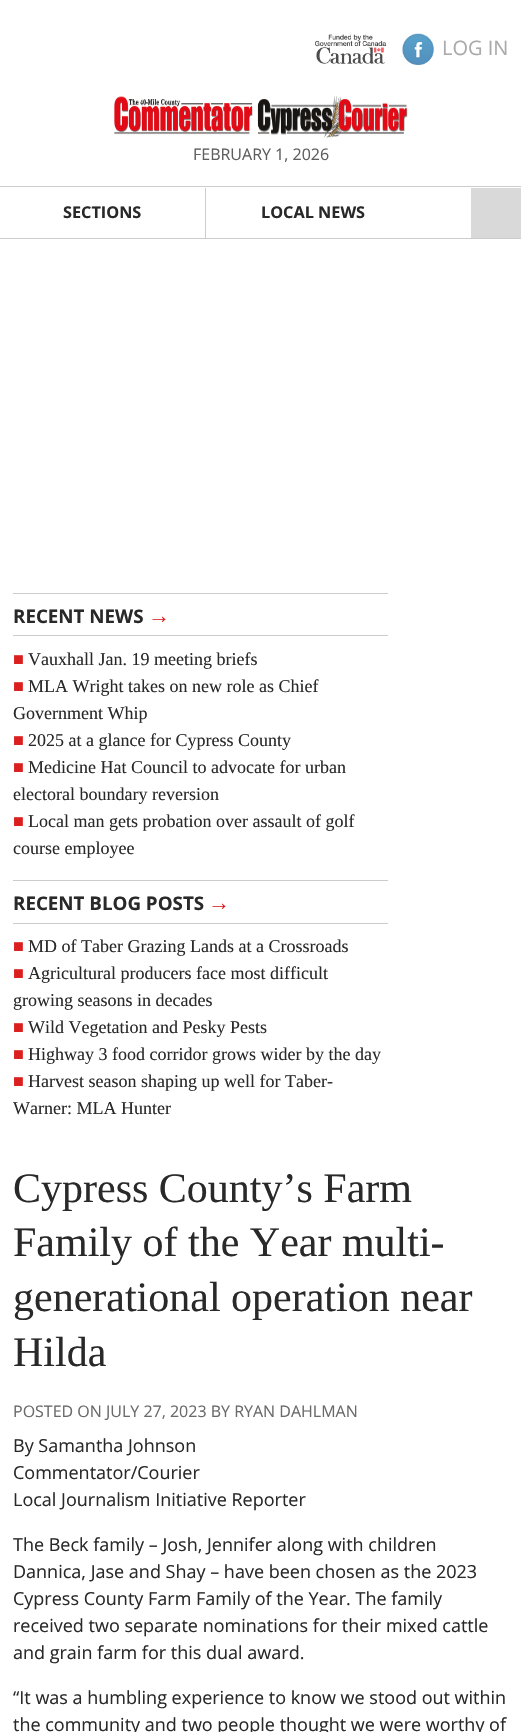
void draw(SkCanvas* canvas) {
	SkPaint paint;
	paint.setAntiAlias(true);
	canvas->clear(0xffffffff);
	canvas->drawImageRect(SkImages::DeferredFromEncodedData(SkData::MakeFromFileName("img1.png")), SkRect::MakeXYWH(315, 34, 72, 30), SkSamplingOptions());
	canvas->drawImageRect(SkImages::DeferredFromEncodedData(SkData::MakeFromFileName("img2.png")), SkRect::MakeXYWH(402, 33, 32, 32), SkSamplingOptions());
	SkFont f1(fontMgr->matchFamilyStyle("Open Sans", SkFontStyle::Normal()), 20);
	f1.setSubpixel(true);
	paint.setColor(0xffaaaaaa);
	canvas->drawString("LOG IN", 442, 55, f1, paint);
	canvas->drawImageRect(SkImages::DeferredFromEncodedData(SkData::MakeFromFileName("img3.png")), SkRect::MakeXYWH(114, 95, 294, 43), SkSamplingOptions());
	SkFont f2(fontMgr->matchFamilyStyle("Open Sans", SkFontStyle::Normal()), 16);
	f2.setSubpixel(true);
	paint.setColor(0xff5e5e5e);
	canvas->drawString("FEBRUARY 1, 2026", 193, 160, f2, paint);
	paint.setColor(0xffcccccc);
	canvas->drawRect(SkRect::MakeXYWH(0, 186, 521, 1), paint);
	canvas->drawRect(SkRect::MakeXYWH(0, 238, 521, 1), paint);
	canvas->drawRect(SkRect::MakeXYWH(205, 188, 1, 50), paint);
	SkFont f3(fontMgr->matchFamilyStyle("Open Sans", SkFontStyle::Bold()), 16.25);
	f3.setSubpixel(true);
	paint.setColor(0xff292929);
	canvas->drawString("SECTIONS", 63, 218, f3, paint);
	canvas->drawString("LOCAL NEWS", 261, 218, f3, paint);
	paint.setColor(0xffd9d9d9);
	canvas->drawRect(SkRect::MakeXYWH(471, 188, 50, 50), paint);
	paint.setColor(0xffcccccc);
	canvas->drawRect(SkRect::MakeXYWH(13, 593, 375, 1), paint);
	canvas->drawRect(SkRect::MakeXYWH(13, 635, 375, 1), paint);
	SkFont f4(fontMgr->matchFamilyStyle("Open Sans", SkFontStyle::Bold()), 18.75);
	f4.setSubpixel(true);
	paint.setColor(0xff292929);
	canvas->drawString("RECENT NEWS", 13, 623, f4, paint);
	SkFont f5(fontMgr->matchFamilyStyle("Liberation Sans", SkFontStyle::Bold()), 22);
	f5.setSubpixel(true);
	paint.setColor(0xffdb1f1f);
	canvas->drawString("→", 148, 623, f5, paint);
	SkFont f6(fontMgr->matchFamilyStyle("Liberation Serif", SkFontStyle::Normal()), 18);
	f6.setSubpixel(true);
	canvas->drawString("■", 13, 665, f6, paint);
	paint.setColor(0xff292929);
	canvas->drawString("Vauxhall Jan. 19 meeting briefs", 28, 665, f6, paint);
	paint.setColor(0xffdb1f1f);
	canvas->drawString("■", 13, 692, f6, paint);
	paint.setColor(0xff292929);
	canvas->drawString("MLA Wright takes on new role as Chief", 28, 692, f6, paint);
	canvas->drawString("Government Whip", 13, 719, f6, paint);
	paint.setColor(0xffdb1f1f);
	canvas->drawString("■", 13, 746, f6, paint);
	paint.setColor(0xff292929);
	canvas->drawString("2025 at a glance for Cypress County", 28, 746, f6, paint);
	paint.setColor(0xffdb1f1f);
	canvas->drawString("■", 13, 773, f6, paint);
	paint.setColor(0xff292929);
	canvas->drawString("Medicine Hat Council to advocate for urban", 28, 773, f6, paint);
	canvas->drawString("electoral boundary reversion", 13, 800, f6, paint);
	paint.setColor(0xffdb1f1f);
	canvas->drawString("■", 13, 827, f6, paint);
	paint.setColor(0xff292929);
	canvas->drawString("Local man gets probation over assault of golf", 28, 827, f6, paint);
	canvas->drawString("course employee", 13, 854, f6, paint);
	paint.setColor(0xffcccccc);
	canvas->drawRect(SkRect::MakeXYWH(13, 880, 375, 1), paint);
	canvas->drawRect(SkRect::MakeXYWH(13, 923, 375, 1), paint);
	paint.setColor(0xff292929);
	canvas->drawString("RECENT BLOG POSTS", 13, 910, f4, paint);
	paint.setColor(0xffdb1f1f);
	canvas->drawString("→", 208, 910, f5, paint);
	canvas->drawString("■", 13, 952, f6, paint);
	paint.setColor(0xff292929);
	canvas->drawString("MD of Taber Grazing Lands at a Crossroads", 28, 952, f6, paint);
	paint.setColor(0xffdb1f1f);
	canvas->drawString("■", 13, 979, f6, paint);
	paint.setColor(0xff292929);
	canvas->drawString("Agricultural producers face most difficult", 28, 979, f6, paint);
	canvas->drawString("growing seasons in decades", 13, 1006, f6, paint);
	paint.setColor(0xffdb1f1f);
	canvas->drawString("■", 13, 1033, f6, paint);
	paint.setColor(0xff292929);
	canvas->drawString("Wild Vegetation and Pesky Pests", 28, 1033, f6, paint);
	paint.setColor(0xffdb1f1f);
	canvas->drawString("■", 13, 1060, f6, paint);
	paint.setColor(0xff292929);
	canvas->drawString("Highway 3 food corridor grows wider by the day", 28, 1060, f6, paint);
	paint.setColor(0xffdb1f1f);
	canvas->drawString("■", 13, 1087, f6, paint);
	paint.setColor(0xff292929);
	canvas->drawString("Harvest season shaping up well for Taber-", 28, 1087, f6, paint);
	canvas->drawString("Warner: MLA Hunter", 13, 1114, f6, paint);
	SkFont f7(fontMgr->matchFamilyStyle("Liberation Serif", SkFontStyle::Normal()), 42);
	f7.setSubpixel(true);
	canvas->drawString("Cypress County’s Farm", 13, 1202, f7, paint);
	canvas->drawString("Family of the Year multi-", 13, 1256, f7, paint);
	canvas->drawString("generational operation near", 13, 1311, f7, paint);
	canvas->drawString("Hilda", 13, 1366, f7, paint);
	paint.setColor(0xff6a6a6a);
	canvas->drawString("POSTED ON JULY 27, 2023 BY RYAN DAHLMAN", 13, 1417, f2, paint);
	SkFont f8(fontMgr->matchFamilyStyle("Open Sans", SkFontStyle::Normal()), 18);
	f8.setSubpixel(true);
	paint.setColor(0xff292929);
	canvas->drawString("By Samantha Johnson", 13, 1452, f8, paint);
	canvas->drawString("Commentator/Courier", 13, 1479, f8, paint);
	canvas->drawString("Local Journalism Initiative Reporter", 13, 1506, f8, paint);
	canvas->drawString("The Beck family – Josh, Jennifer along with children", 13, 1551, f8, paint);
	canvas->drawString("Dannica, Jase and Shay – have been chosen as the 2023", 13, 1578, f8, paint);
	canvas->drawString("Cypress County Farm Family of the Year. The family", 13, 1605, f8, paint);
	canvas->drawString("received two separate nominations for their mixed cattle", 13, 1632, f8, paint);
	canvas->drawString("and grain farm for this dual award.", 13, 1659, f8, paint);
	canvas->drawString("“It was a humbling experience to know we stood out within", 13, 1704, f8, paint);
	canvas->drawString("the community and two people thought we were worthy of", 13, 1731, f8, paint);
}
